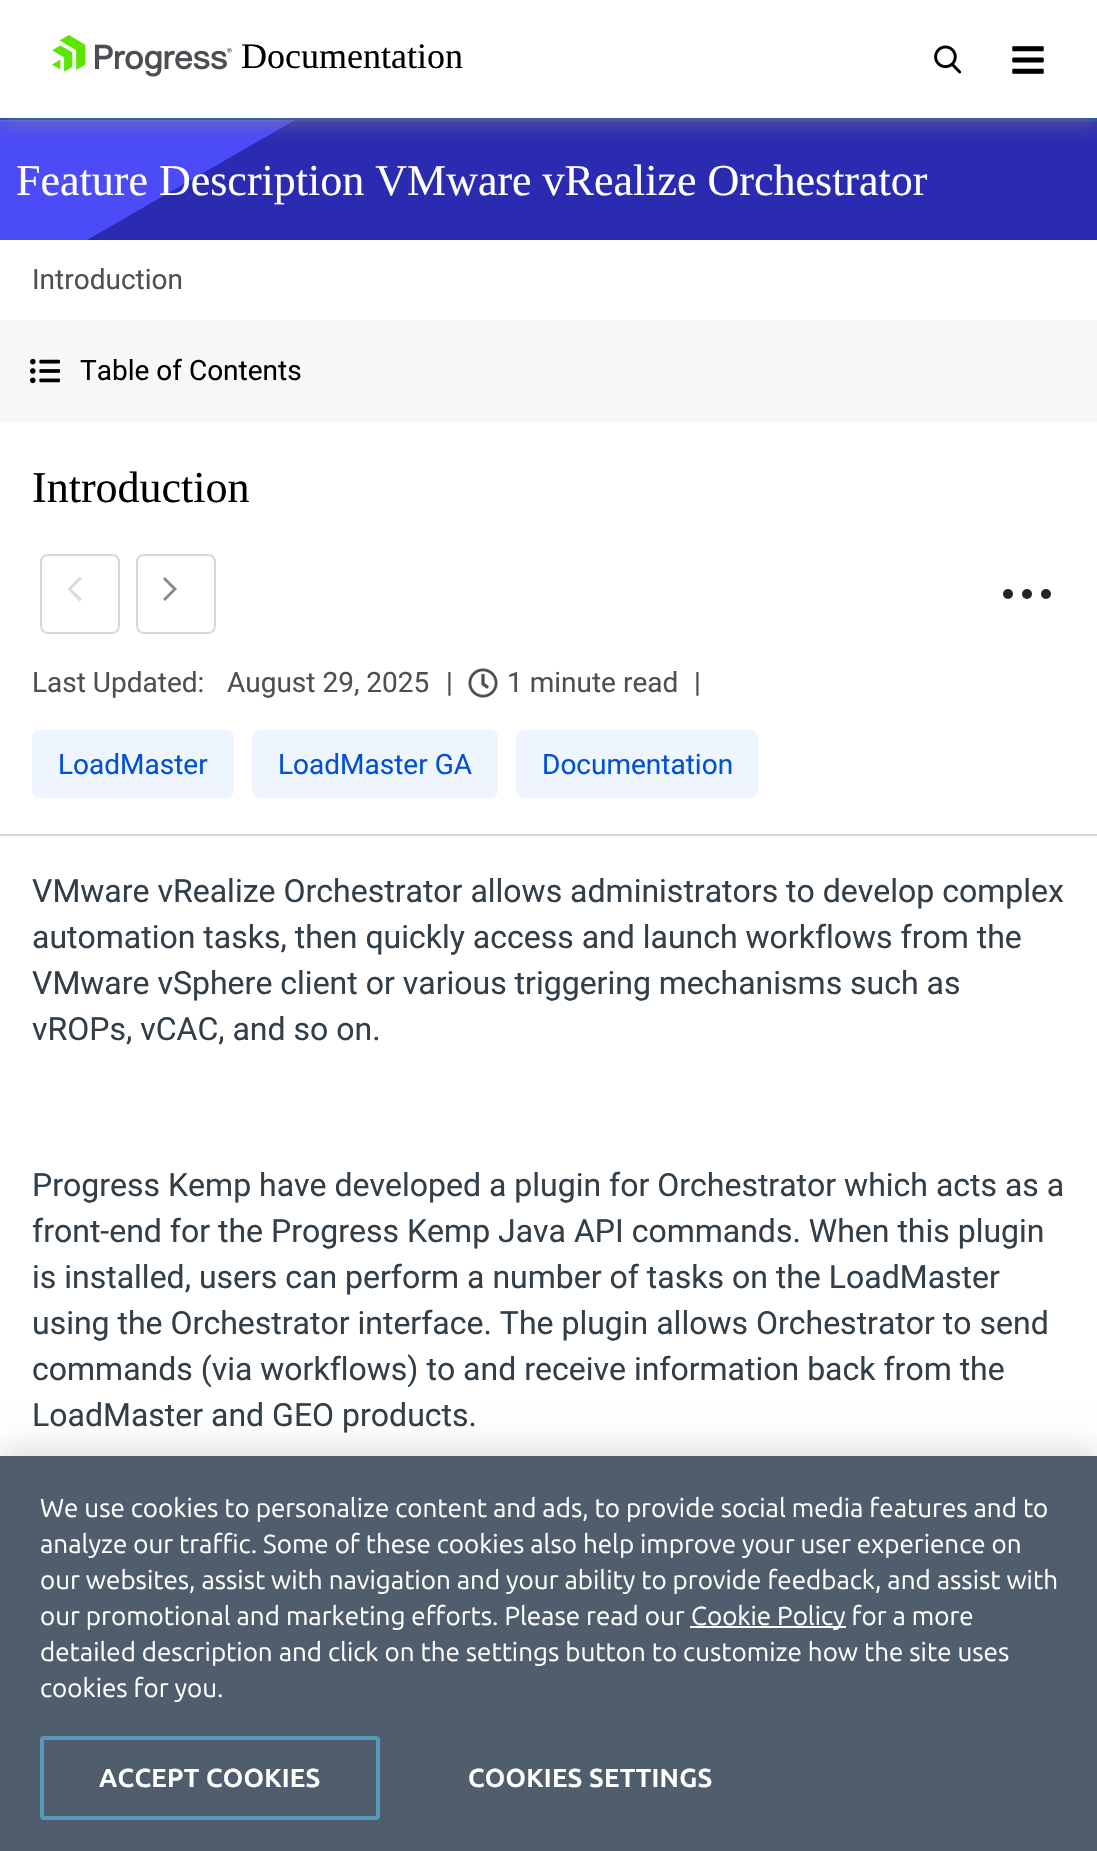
void draw(SkCanvas* canvas) {
	SkPaint paint;
	paint.setAntiAlias(true);
	auto spacedText = [&](const char* s, float x, float y, const SkFont& font, const SkPaint& ink, float letter, float word) {
		std::vector<SkGlyphID> glyphs(font.countText(s, strlen(s), SkTextEncoding::kUTF8));
		std::vector<float> xs(glyphs.size());
		font.textToGlyphs(s, strlen(s), SkTextEncoding::kUTF8, glyphs);
		font.getXPos(glyphs, xs, x);
		float extra = 0;
		for (size_t i = 0; i < glyphs.size(); i++) {
			xs[i] += extra;
			extra += letter + word * (glyphs[i] == font.unicharToGlyph(' '));
		}
		canvas->drawTextBlob(SkTextBlob::MakeFromPosHGlyphs(glyphs, xs, y, font), 0, 0, ink);
	};
	auto svgPath = [&](const char* data, bool evenOdd = false) {
		SkPath result = *SkParsePath::FromSVGString(data);
		if (evenOdd) result.setFillType(SkPathFillType::kEvenOdd);
		return result;
	};
	canvas->clear(0xffffffff);
	paint.setColor(0xff024db5);
	canvas->drawRect(SkRect::MakeXYWH(0, 118, 1097, 2), paint);
	canvas->drawImageRect(SkImages::DeferredFromEncodedData(SkData::MakeFromFileName("img4.png")), SkRect::MakeXYWH(0, 120, 1097, 120), SkSamplingOptions());
	canvas->save();
	canvas->clipRect(SkRect::MakeXYWH(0, 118, 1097, 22));
	paint.setColor(0x9e838486);
	paint.setMaskFilter(SkMaskFilter::MakeBlur(kNormal_SkBlurStyle, 10));
	canvas->drawRect(SkRect::MakeXYWH(0, 4, 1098, 118), paint);
	paint.setMaskFilter(nullptr);
	canvas->restore();
	canvas->drawImageRect(SkImages::DeferredFromEncodedData(SkData::MakeFromFileName("img1.png")), SkRect::MakeXYWH(52, 35, 180, 42), SkSamplingOptions());
	SkFont f1(fontMgr->matchFamilyStyle("Liberation Serif", SkFontStyle::Normal()), 36);
	f1.setSubpixel(true);
	paint.setColor(0xff000000);
	canvas->drawString("Documentation", 241, 68, f1, paint);
	canvas->drawImageRect(SkImages::DeferredFromEncodedData(SkData::MakeFromFileName("img2.png")), SkRect::MakeXYWH(934, 45, 28, 29), SkSamplingOptions());
	canvas->drawImageRect(SkImages::DeferredFromEncodedData(SkData::MakeFromFileName("img3.png")), SkRect::MakeXYWH(1012, 46, 32, 28), SkSamplingOptions());
	SkFont f2(fontMgr->matchFamilyStyle("Liberation Serif", SkFontStyle::Normal()), 44);
	f2.setSubpixel(true);
	paint.setColor(0xffffffff);
	canvas->drawString("Feature Description VMware vRealize Orchestrator", 16, 195, f2, paint);
	SkFont f3(fontMgr->matchFamilyStyle("Roboto", SkFontStyle::Normal()), 28);
	f3.setSubpixel(true);
	paint.setColor(0xff4f4f4f);
	canvas->drawString("Introduction", 32, 289, f3, paint);
	paint.setColor(0xfff7f7f7);
	canvas->drawRect(SkRect::MakeXYWH(0, 320, 1097, 102), paint);
	canvas->drawImageRect(SkImages::DeferredFromEncodedData(SkData::MakeFromFileName("img5.png")), SkRect::MakeXYWH(30, 358, 30, 26), SkSamplingOptions());
	paint.setColor(0xff000000);
	canvas->drawString("Table of Contents", 80, 380, f3, paint);
	paint.setColor(0xffd8d8d8);
	canvas->drawRect(SkRect::MakeXYWH(0, 834, 1097, 2), paint);
	paint.setColor(0xff000000);
	canvas->drawString("Introduction", 32, 502, f2, paint);
	paint.setStroke(true);
	paint.setStrokeWidth(2);
	paint.setColor(0xffd8d8d8);
	canvas->drawRoundRect(SkRect::MakeXYWH(41, 555, 78, 78), 7, 7, paint);
	paint.setStroke(false);
	paint.setColor(0xffdadcde);
	canvas->drawPath(svgPath("M82 579L79.5 576.5L67.5 589L79.5 601.5L82 599L71.5 589Z"), paint);
	paint.setStroke(true);
	paint.setColor(0xffd8d8d8);
	canvas->drawRoundRect(SkRect::MakeXYWH(137, 555, 78, 78), 7, 7, paint);
	paint.setStroke(false);
	paint.setColor(0xff838a91);
	canvas->drawPath(svgPath("M163 599L165 601L177 589L165 577L163 579L173 589Z"), paint);
	paint.setColor(0xff212529);
	canvas->drawCircle(1008, 594, 5, paint);
	canvas->drawCircle(1027, 594, 5, paint);
	canvas->drawCircle(1046, 594, 5, paint);
	paint.setColor(0xff4f4f4f);
	canvas->drawString("Last Updated:", 32, 692, f3, paint);
	canvas->drawString("August 29, 2025", 227, 692, f3, paint);
	canvas->drawString("|", 446, 692, f3, paint);
	canvas->drawImageRect(SkImages::DeferredFromEncodedData(SkData::MakeFromFileName("img6.png")), SkRect::MakeXYWH(468, 668, 30, 30), SkSamplingOptions());
	canvas->drawString("1 minute read", 507, 692, f3, paint);
	canvas->drawString("|", 694, 692, f3, paint);
	paint.setColor(0xffeef5ff);
	canvas->drawRoundRect(SkRect::MakeXYWH(32, 730, 202, 68), 8, 8, paint);
	paint.setColor(0xff0051d3);
	canvas->drawString("LoadMaster", 58, 774, f3, paint);
	paint.setColor(0xffeef5ff);
	canvas->drawRoundRect(SkRect::MakeXYWH(252, 730, 246, 68), 8, 8, paint);
	paint.setColor(0xff0051d3);
	canvas->drawString("LoadMaster GA", 278, 774, f3, paint);
	paint.setColor(0xffeef5ff);
	canvas->drawRoundRect(SkRect::MakeXYWH(516, 730, 242, 68), 8, 8, paint);
	paint.setColor(0xff0051d3);
	canvas->drawString("Documentation", 542, 774, f3, paint);
	SkFont f4(fontMgr->matchFamilyStyle("Roboto", SkFontStyle::Normal()), 32);
	f4.setSubpixel(true);
	paint.setColor(0xff323e48);
	canvas->drawString("VMware vRealize Orchestrator allows administrators to develop complex", 32, 902, f4, paint);
	canvas->drawString("automation tasks, then quickly access and launch workflows from the", 32, 948, f4, paint);
	canvas->drawString("VMware vSphere client or various triggering mechanisms such as", 32, 994, f4, paint);
	canvas->drawString("vROPs, vCAC, and so on.", 32, 1040, f4, paint);
	canvas->drawString("Progress Kemp have developed a plugin for Orchestrator which acts as a", 32, 1196, f4, paint);
	canvas->drawString("front-end for the Progress Kemp Java API commands. When this plugin", 32, 1242, f4, paint);
	canvas->drawString("is installed, users can perform a number of tasks on the LoadMaster", 32, 1288, f4, paint);
	canvas->drawString("using the Orchestrator interface. The plugin allows Orchestrator to send", 32, 1334, f4, paint);
	canvas->drawString("commands (via workflows) to and receive information back from the", 32, 1380, f4, paint);
	canvas->drawString("LoadMaster and GEO products.", 32, 1426, f4, paint);
	paint.setColor(0x33000000);
	paint.setMaskFilter(SkMaskFilter::MakeBlur(kNormal_SkBlurStyle, 18));
	canvas->drawRect(SkRect::MakeXYWH(0, 1456, 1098, 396), paint);
	paint.setMaskFilter(nullptr);
	paint.setColor(0xff4f5d6c);
	canvas->drawRect(SkRect::MakeXYWH(0, 1456, 1097, 395), paint);
	SkFont f5(fontMgr->matchFamilyStyle("Ubuntu", SkFontStyle::Normal()), 26);
	f5.setSubpixel(true);
	paint.setColor(0xffffffff);
	canvas->drawString("We use cookies to personalize content and ads, to provide social media features and to", 40, 1517, f5, paint);
	canvas->drawString("analyze our traffic. Some of these cookies also help improve your user experience on", 40, 1553, f5, paint);
	canvas->drawString("our websites, assist with navigation and your ability to provide feedback, and assist with", 40, 1589, f5, paint);
	canvas->drawString("our promotional and marketing efforts. Please read our", 40, 1625, f5, paint);
	canvas->drawRect(SkRect::MakeXYWH(690, 1626, 156, 2), paint);
	canvas->drawString("Cookie Policy for a more", 691, 1625, f5, paint);
	canvas->drawString("detailed description and click on the settings button to customize how the site uses", 40, 1661, f5, paint);
	canvas->drawString("cookies for you.", 40, 1697, f5, paint);
	paint.setStroke(true);
	paint.setStrokeWidth(4);
	paint.setColor(0xff5699b6);
	canvas->drawRoundRect(SkRect::MakeXYWH(42, 1738, 336, 80), 2, 2, paint);
	SkFont f6(fontMgr->matchFamilyStyle("Ubuntu", SkFontStyle::Bold()), 26);
	f6.setSubpixel(true);
	paint.setStroke(false);
	paint.setColor(0xffffffff);
	spacedText("ACCEPT COOKIES", 99, 1787, f6, paint, 0.25, 0);
	spacedText("COOKIES SETTINGS", 468, 1787, f6, paint, 0.25, 0);
}
